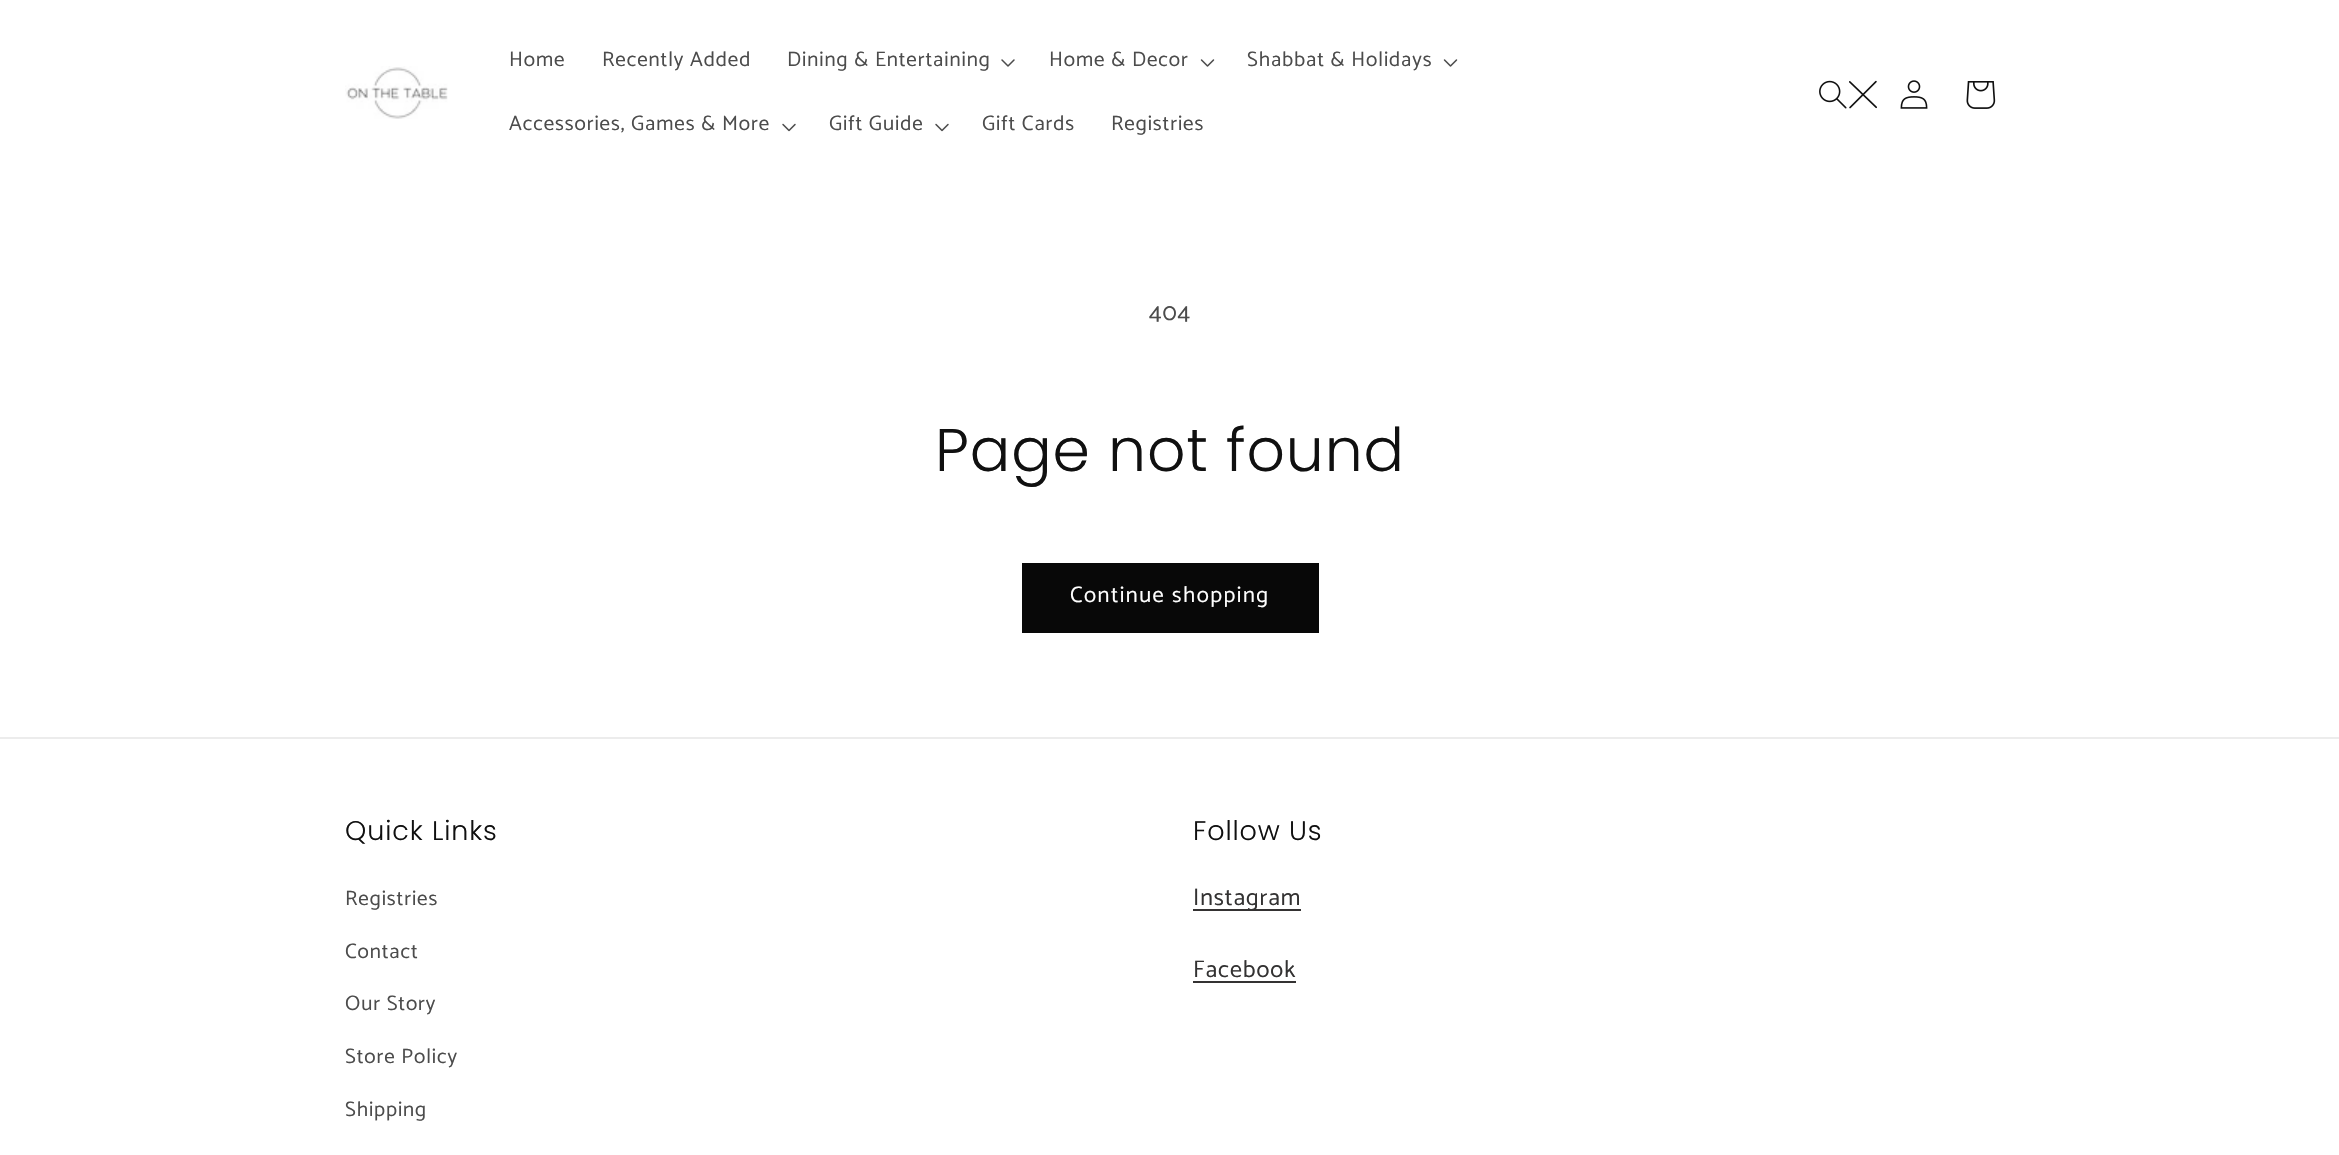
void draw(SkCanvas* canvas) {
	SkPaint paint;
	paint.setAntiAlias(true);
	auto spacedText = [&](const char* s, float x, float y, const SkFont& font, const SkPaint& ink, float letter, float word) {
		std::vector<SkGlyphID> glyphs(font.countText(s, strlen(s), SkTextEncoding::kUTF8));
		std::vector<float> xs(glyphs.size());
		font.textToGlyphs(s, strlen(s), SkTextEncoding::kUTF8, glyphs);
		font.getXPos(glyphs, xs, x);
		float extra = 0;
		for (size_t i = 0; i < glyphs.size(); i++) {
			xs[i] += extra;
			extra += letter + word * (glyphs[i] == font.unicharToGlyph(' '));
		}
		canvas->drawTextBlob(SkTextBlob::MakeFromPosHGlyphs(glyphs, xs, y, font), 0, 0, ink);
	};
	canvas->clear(0xffffffff);
	canvas->drawImageRect(SkImages::DeferredFromEncodedData(SkData::MakeFromFileName("img1.png")), SkRect::MakeXYWH(345, 66, 103, 53), SkSamplingOptions());
	SkFont f1(fontMgr->matchFamilyStyle("Catamaran", SkFontStyle::Normal()), 21);
	f1.setSubpixel(true);
	paint.setColor(0xff4c4c4c);
	spacedText("Home", 509, 66, f1, paint, 0.9, 0);
	spacedText("Recently Added", 602, 66, f1, paint, 0.9, 0);
	spacedText("Dining & Entertaining", 787, 66, f1, paint, 0.9, 0);
	canvas->drawImageRect(SkImages::DeferredFromEncodedData(SkData::MakeFromFileName("img2.png")), SkRect::MakeXYWH(1001, 59, 14, 8), SkSamplingOptions());
	spacedText("Home & Decor", 1049, 66, f1, paint, 0.9, 0);
	canvas->drawImageRect(SkImages::DeferredFromEncodedData(SkData::MakeFromFileName("img3.png")), SkRect::MakeXYWH(1200, 59, 15, 8), SkSamplingOptions());
	spacedText("Shabbat & Holidays", 1247, 66, f1, paint, 0.9, 0);
	canvas->drawImageRect(SkImages::DeferredFromEncodedData(SkData::MakeFromFileName("img3.png")), SkRect::MakeXYWH(1443, 59, 15, 8), SkSamplingOptions());
	spacedText("Accessories, Games & More", 509, 130, f1, paint, 0.9, 0);
	canvas->drawImageRect(SkImages::DeferredFromEncodedData(SkData::MakeFromFileName("img4.png")), SkRect::MakeXYWH(782, 123, 14, 9), SkSamplingOptions());
	spacedText("Gift Guide", 829, 130, f1, paint, 0.9, 0);
	canvas->drawImageRect(SkImages::DeferredFromEncodedData(SkData::MakeFromFileName("img4.png")), SkRect::MakeXYWH(935, 123, 14, 9), SkSamplingOptions());
	spacedText("Gift Cards", 982, 130, f1, paint, 0.9, 0);
	spacedText("Registries", 1111, 130, f1, paint, 0.9, 0);
	canvas->drawImageRect(SkImages::DeferredFromEncodedData(SkData::MakeFromFileName("img5.png")), SkRect::MakeXYWH(1819, 80, 28, 29), SkSamplingOptions());
	canvas->drawImageRect(SkImages::DeferredFromEncodedData(SkData::MakeFromFileName("img6.png")), SkRect::MakeXYWH(1849, 80, 28, 29), SkSamplingOptions());
	canvas->drawImageRect(SkImages::DeferredFromEncodedData(SkData::MakeFromFileName("img7.png")), SkRect::MakeXYWH(1900, 80, 28, 29), SkSamplingOptions());
	canvas->drawImageRect(SkImages::DeferredFromEncodedData(SkData::MakeFromFileName("img8.png")), SkRect::MakeXYWH(1966, 81, 30, 28), SkSamplingOptions());
	SkFont f2(fontMgr->matchFamilyStyle("Catamaran", SkFontStyle::Normal()), 24);
	f2.setSubpixel(true);
	spacedText("404", 1149, 320, f2, paint, 0.9, 0);
	SkFont f3(fontMgr->matchFamilyStyle("Poppins", SkFontStyle(300, SkFontStyle::kNormal_Width, SkFontStyle::kUpright_Slant)), 60);
	f3.setSubpixel(true);
	paint.setColor(0xff101010);
	spacedText("Page not found", 935, 471, f3, paint, 0.9, 0);
	paint.setStroke(true);
	paint.setStrokeWidth(2);
	paint.setColor(0xff080808);
	canvas->drawRect(SkRect::MakeXYWH(1023, 564, 295, 68), paint);
	paint.setStroke(false);
	canvas->drawRect(SkRect::MakeXYWH(1024, 565, 293, 66), paint);
	SkFont f4(fontMgr->matchFamilyStyle("Catamaran", SkFontStyle::Normal()), 22.5);
	f4.setSubpixel(true);
	paint.setColor(0xffffffff);
	spacedText("Continue shopping", 1070, 602, f4, paint, 1.5, 0);
	paint.setColor(0xffececec);
	canvas->drawRect(SkRect::MakeXYWH(0, 737, 2339, 2), paint);
	SkFont f5(fontMgr->matchFamilyStyle("Poppins", SkFontStyle(300, SkFontStyle::kNormal_Width, SkFontStyle::kUpright_Slant)), 27);
	f5.setSubpixel(true);
	paint.setColor(0xff101010);
	spacedText("Quick Links", 345, 840, f5, paint, 0.9, 0);
	paint.setColor(0xff4c4c4c);
	spacedText("Registries", 345, 905, f1, paint, 0.9, 0);
	spacedText("Contact", 345, 958, f1, paint, 0.9, 0);
	spacedText("Our Story", 345, 1010, f1, paint, 0.9, 0);
	spacedText("Store Policy", 345, 1063, f1, paint, 0.9, 0);
	spacedText("Shipping", 345, 1116, f1, paint, 0.9, 0);
	paint.setColor(0xff101010);
	spacedText("Follow Us", 1193, 840, f5, paint, 0.9, 0);
	paint.setColor(0xff343232);
	canvas->drawRect(SkRect::MakeXYWH(1193, 909, 108, 2), paint);
	paint.setColor(0xff333232);
	spacedText("Instagram", 1193, 905, f2, paint, 0.9, 0);
	spacedText("Facebook", 1193, 977, f2, paint, 0.9, 0);
	paint.setColor(0xff343232);
	canvas->drawRect(SkRect::MakeXYWH(1193, 981, 103, 2), paint);
}
